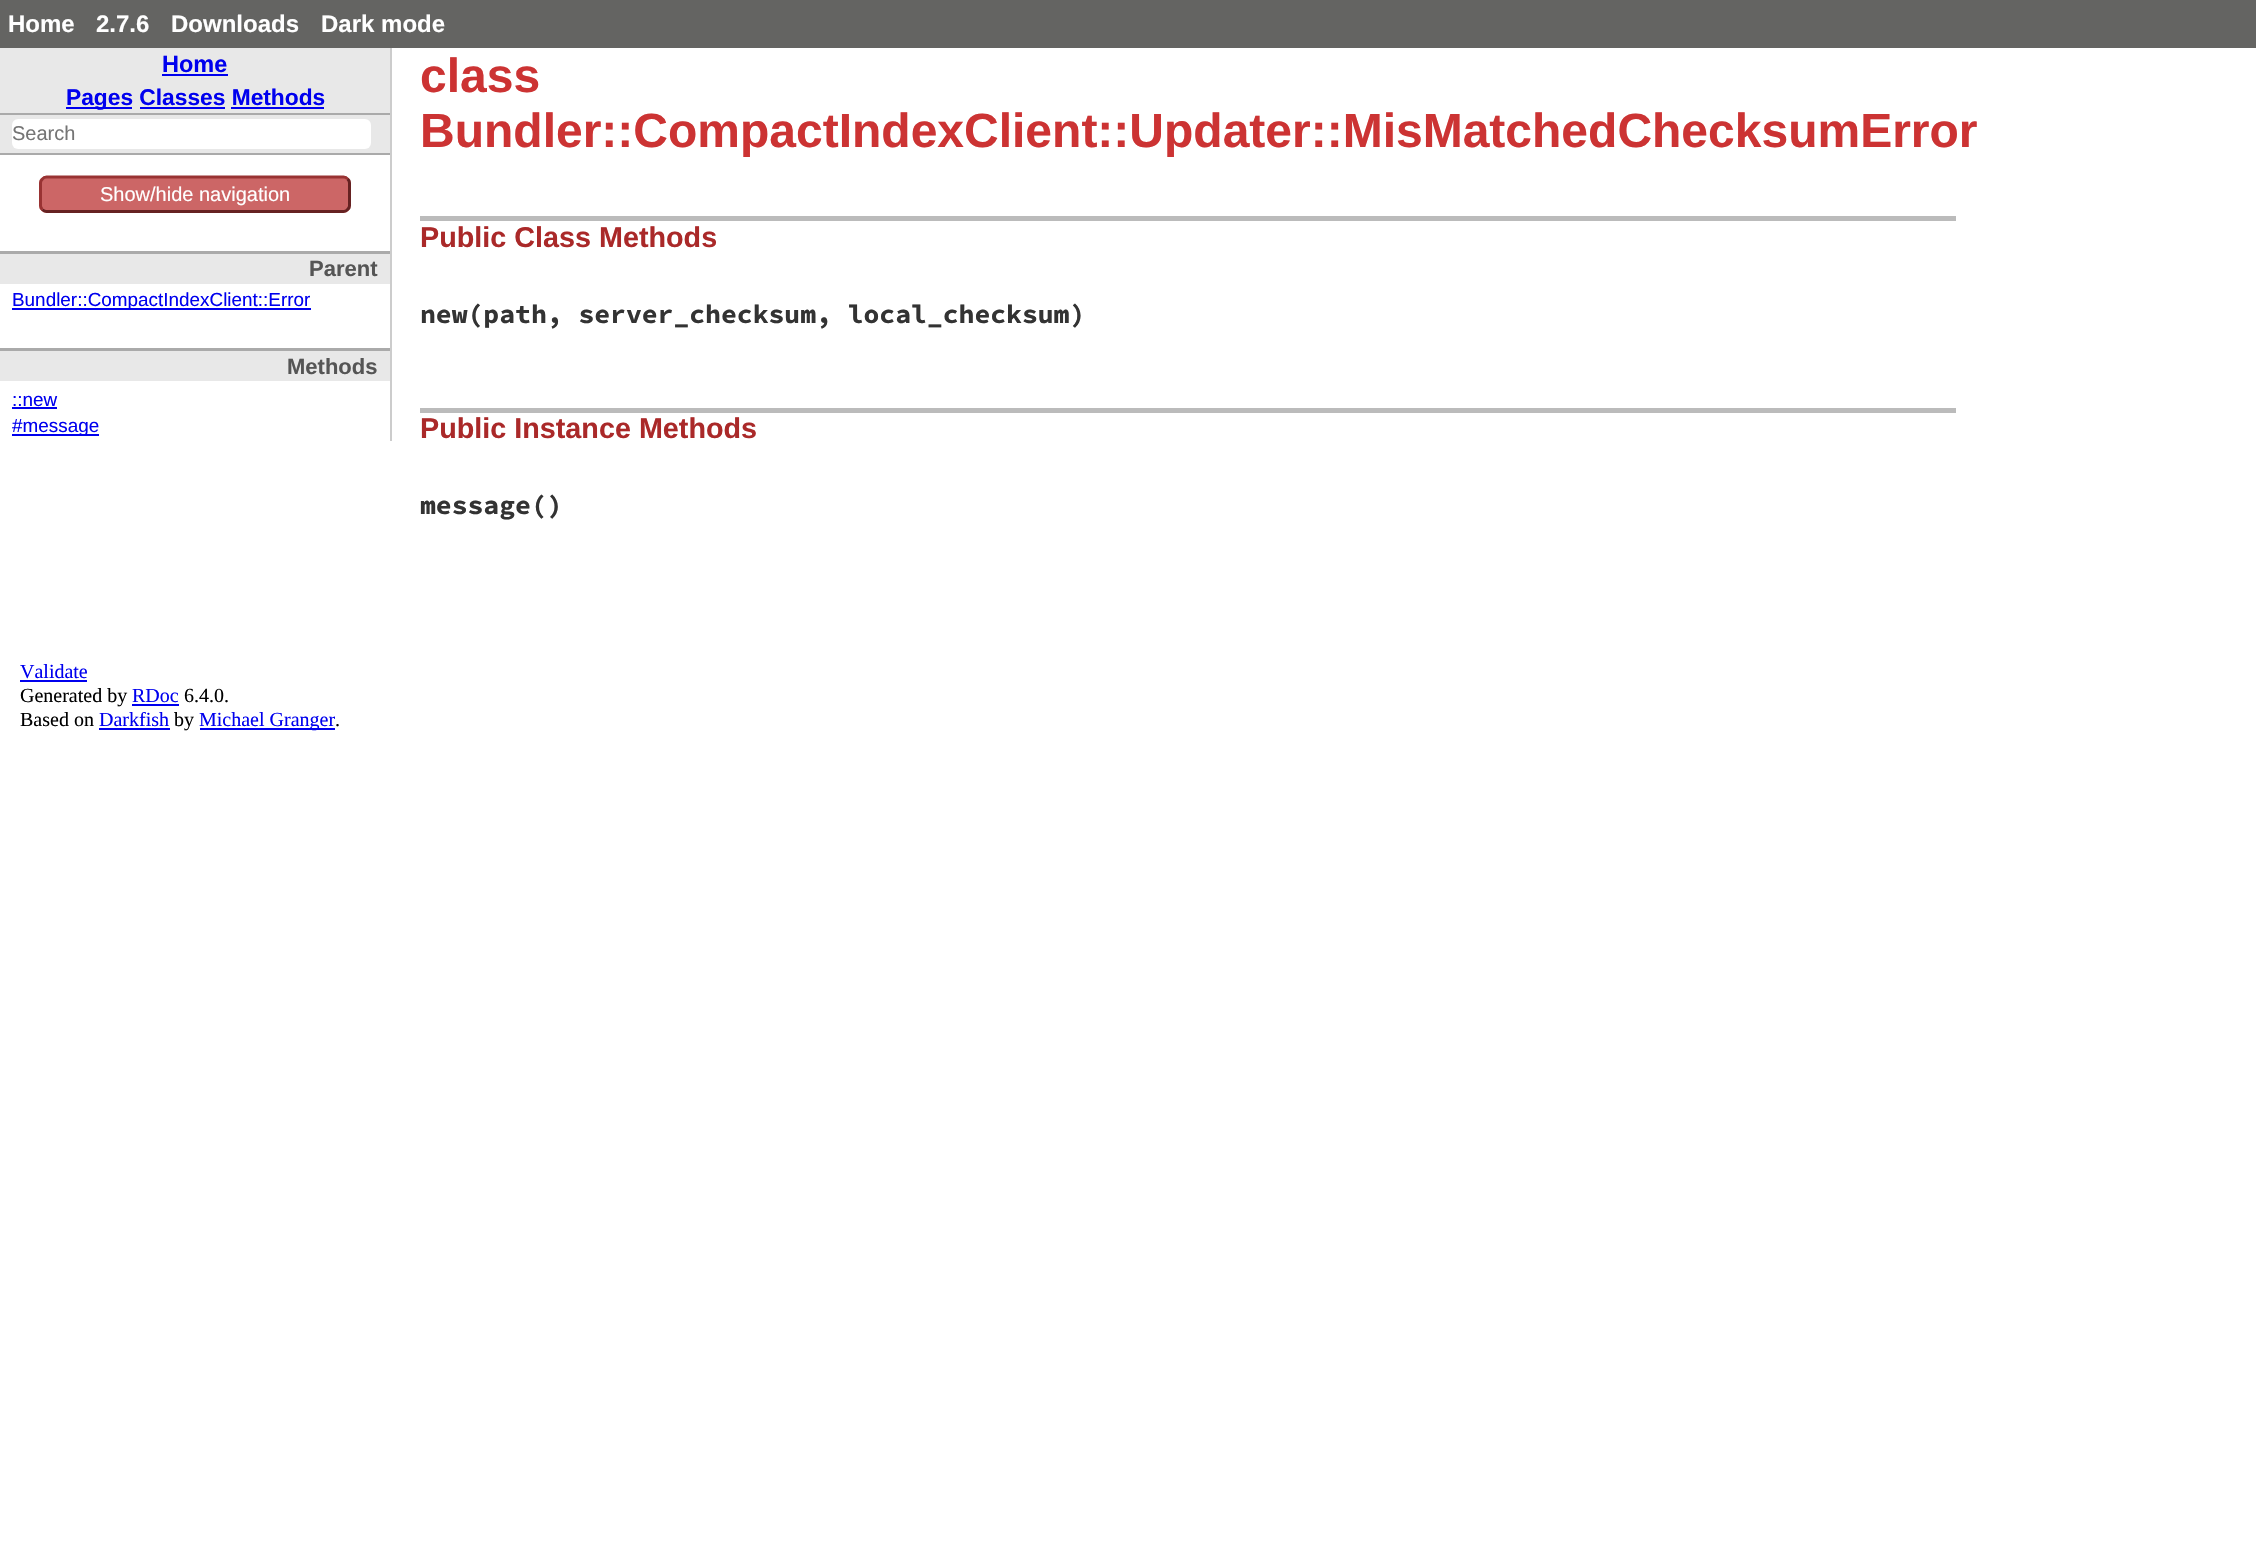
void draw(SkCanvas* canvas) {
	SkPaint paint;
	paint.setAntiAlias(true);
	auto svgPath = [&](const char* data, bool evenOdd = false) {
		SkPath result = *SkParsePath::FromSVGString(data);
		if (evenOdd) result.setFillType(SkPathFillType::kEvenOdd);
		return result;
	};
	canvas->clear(0xffffffff);
	paint.setColor(0xff646462);
	canvas->drawRect(SkRect::MakeXYWH(0, 0, 2256, 48), paint);
	SkFont f1(fontMgr->matchFamilyStyle("Liberation Sans", SkFontStyle::Bold()), 24);
	f1.setSubpixel(true);
	paint.setColor(0xffffffff);
	canvas->drawString("Home", 8, 32, f1, paint);
	canvas->drawString("2.7.6", 96, 32, f1, paint);
	canvas->drawString("Downloads", 171, 32, f1, paint);
	canvas->drawString("Dark mode", 321, 32, f1, paint);
	paint.setColor(0xffcccccc);
	canvas->drawRect(SkRect::MakeXYWH(390, 48, 2, 393), paint);
	paint.setColor(0xffe8e8e8);
	canvas->drawRect(SkRect::MakeXYWH(0, 48, 390, 65), paint);
	SkFont f2(fontMgr->matchFamilyStyle("Liberation Sans", SkFontStyle::Bold()), 23.5);
	f2.setSubpixel(true);
	paint.setColor(0xff0000ee);
	canvas->drawString("Home", 162, 72, f2, paint);
	canvas->drawRect(SkRect::MakeXYWH(162, 74, 66, 2), paint);
	canvas->drawRect(SkRect::MakeXYWH(66, 107, 66, 2), paint);
	SkFont f3(fontMgr->matchFamilyStyle("Liberation Sans", SkFontStyle::Bold()), 22.75);
	f3.setSubpixel(true);
	canvas->drawString("Pages Classes Methods", 66, 105, f3, paint);
	canvas->drawRect(SkRect::MakeXYWH(140, 107, 85, 2), paint);
	canvas->drawRect(SkRect::MakeXYWH(231, 107, 93, 2), paint);
	paint.setColor(0xffe8e8e8);
	canvas->drawRect(SkRect::MakeXYWH(0, 115, 390, 38), paint);
	paint.setColor(0xffaaaaaa);
	canvas->drawRect(SkRect::MakeXYWH(0, 113, 390, 2), paint);
	canvas->drawRect(SkRect::MakeXYWH(0, 153, 390, 2), paint);
	paint.setColor(0xffffffff);
	canvas->drawRoundRect(SkRect::MakeXYWH(12, 119, 359, 30), 6, 6, paint);
	SkFont f4(fontMgr->matchFamilyStyle("Liberation Sans", SkFontStyle::Normal()), 20);
	f4.setSubpixel(true);
	paint.setColor(0xff757575);
	canvas->drawString("Search", 12, 140, f4, paint);
	paint.setColor(0xffcc6666);
	canvas->drawRoundRect(SkRect::MakeXYWH(39, 176, 312, 37), 8, 8, paint);
	paint.setStroke(true);
	paint.setStrokeWidth(3);
	paint.setColor(0xff662222);
	canvas->drawPath(svgPath("M347.5 179C349 180 349.5 181.5 349.5 183V205.5C349.5 207 349 208.5 347.5 209.5C346.5 211 345 211.5 343.5 211.5H46.5C45 211.5 43.5 211 42.5 209.5"), paint);
	paint.setColor(0xff993333);
	canvas->drawPath(svgPath("M42.5 209.5C41 208.5 40.5 207 40.5 205.5V183C40.5 181.5 41 180 42.5 179C43.5 177.5 45 177 46.5 177H343.5C345 177 346.5 177.5 347.5 179"), paint);
	paint.setStroke(false);
	paint.setColor(0xffffffff);
	canvas->drawString("Show/hide navigation", 100, 201, f4, paint);
	paint.setColor(0xffaaaaaa);
	canvas->drawRect(SkRect::MakeXYWH(0, 251, 390, 3), paint);
	paint.setColor(0xffe8e8e8);
	canvas->drawRect(SkRect::MakeXYWH(0, 254, 390, 30), paint);
	SkFont f5(fontMgr->matchFamilyStyle("Liberation Sans", SkFontStyle::Bold()), 22);
	f5.setSubpixel(true);
	paint.setColor(0xff555555);
	canvas->drawString("Parent", 309, 276, f5, paint);
	paint.setColor(0xff0000ee);
	canvas->drawRect(SkRect::MakeXYWH(12, 308, 299, 2), paint);
	SkFont f6(fontMgr->matchFamilyStyle("Liberation Sans", SkFontStyle::Normal()), 18.9);
	f6.setSubpixel(true);
	canvas->drawString("Bundler::CompactIndexClient::Error", 12, 306, f6, paint);
	paint.setColor(0xffaaaaaa);
	canvas->drawRect(SkRect::MakeXYWH(0, 348, 390, 3), paint);
	paint.setColor(0xffe8e8e8);
	canvas->drawRect(SkRect::MakeXYWH(0, 351, 390, 30), paint);
	paint.setColor(0xff555555);
	canvas->drawString("Methods", 287, 374, f5, paint);
	paint.setColor(0xff0000ee);
	canvas->drawString("::new", 12, 406, f6, paint);
	canvas->drawRect(SkRect::MakeXYWH(12, 407, 45, 2), paint);
	canvas->drawRect(SkRect::MakeXYWH(12, 434, 87, 2), paint);
	canvas->drawString("#message", 12, 432, f6, paint);
	SkFont f7(fontMgr->matchFamilyStyle("Liberation Sans", SkFontStyle::Bold()), 48);
	f7.setSubpixel(true);
	paint.setColor(0xffcc3333);
	canvas->drawString("class", 420, 92, f7, paint);
	canvas->drawString("Bundler::CompactIndexClient::Updater::MisMatchedChecksumError", 420, 147, f7, paint);
	paint.setColor(0xffbbbbbb);
	canvas->drawRect(SkRect::MakeXYWH(420, 216, 1536, 5), paint);
	SkFont f8(fontMgr->matchFamilyStyle("Liberation Sans", SkFontStyle::Bold()), 28.75);
	f8.setSubpixel(true);
	paint.setColor(0xffaa2929);
	canvas->drawString("Public Class Methods", 420, 247, f8, paint);
	SkFont f9(fontMgr->matchFamilyStyle("Source Code Pro", SkFontStyle::Bold()), 26.4);
	f9.setSubpixel(true);
	paint.setColor(0xff333333);
	canvas->drawString("new(path, server_checksum, local_checksum)", 420, 323, f9, paint);
	paint.setColor(0xffbbbbbb);
	canvas->drawRect(SkRect::MakeXYWH(420, 408, 1536, 5), paint);
	paint.setColor(0xffaa2929);
	canvas->drawString("Public Instance Methods", 420, 438, f8, paint);
	paint.setColor(0xff333333);
	canvas->drawString("message()", 420, 514, f9, paint);
	SkFont f10(fontMgr->matchFamilyStyle("Liberation Serif", SkFontStyle::Normal()), 20);
	f10.setSubpixel(true);
	paint.setColor(0xff0000ee);
	canvas->drawString("Validate", 20, 678, f10, paint);
	canvas->drawRect(SkRect::MakeXYWH(20, 680, 67, 2), paint);
	paint.setColor(0xff000000);
	canvas->drawString("Generated by", 20, 702, f10, paint);
	paint.setColor(0xff0000ee);
	canvas->drawString("RDoc", 132, 702, f10, paint);
	canvas->drawRect(SkRect::MakeXYWH(132, 704, 47, 2), paint);
	paint.setColor(0xff000000);
	canvas->drawString("6.4.0.", 184, 702, f10, paint);
	canvas->drawString("Based on", 20, 726, f10, paint);
	paint.setColor(0xff0000ee);
	canvas->drawString("Darkfish", 99, 726, f10, paint);
	canvas->drawRect(SkRect::MakeXYWH(99, 728, 71, 2), paint);
	paint.setColor(0xff000000);
	canvas->drawString("by", 174, 726, f10, paint);
	paint.setColor(0xff0000ee);
	canvas->drawRect(SkRect::MakeXYWH(200, 728, 135, 2), paint);
	canvas->drawString("Michael Granger", 199, 726, f10, paint);
	paint.setColor(0xff000000);
	canvas->drawString(".", 335, 726, f10, paint);
}
